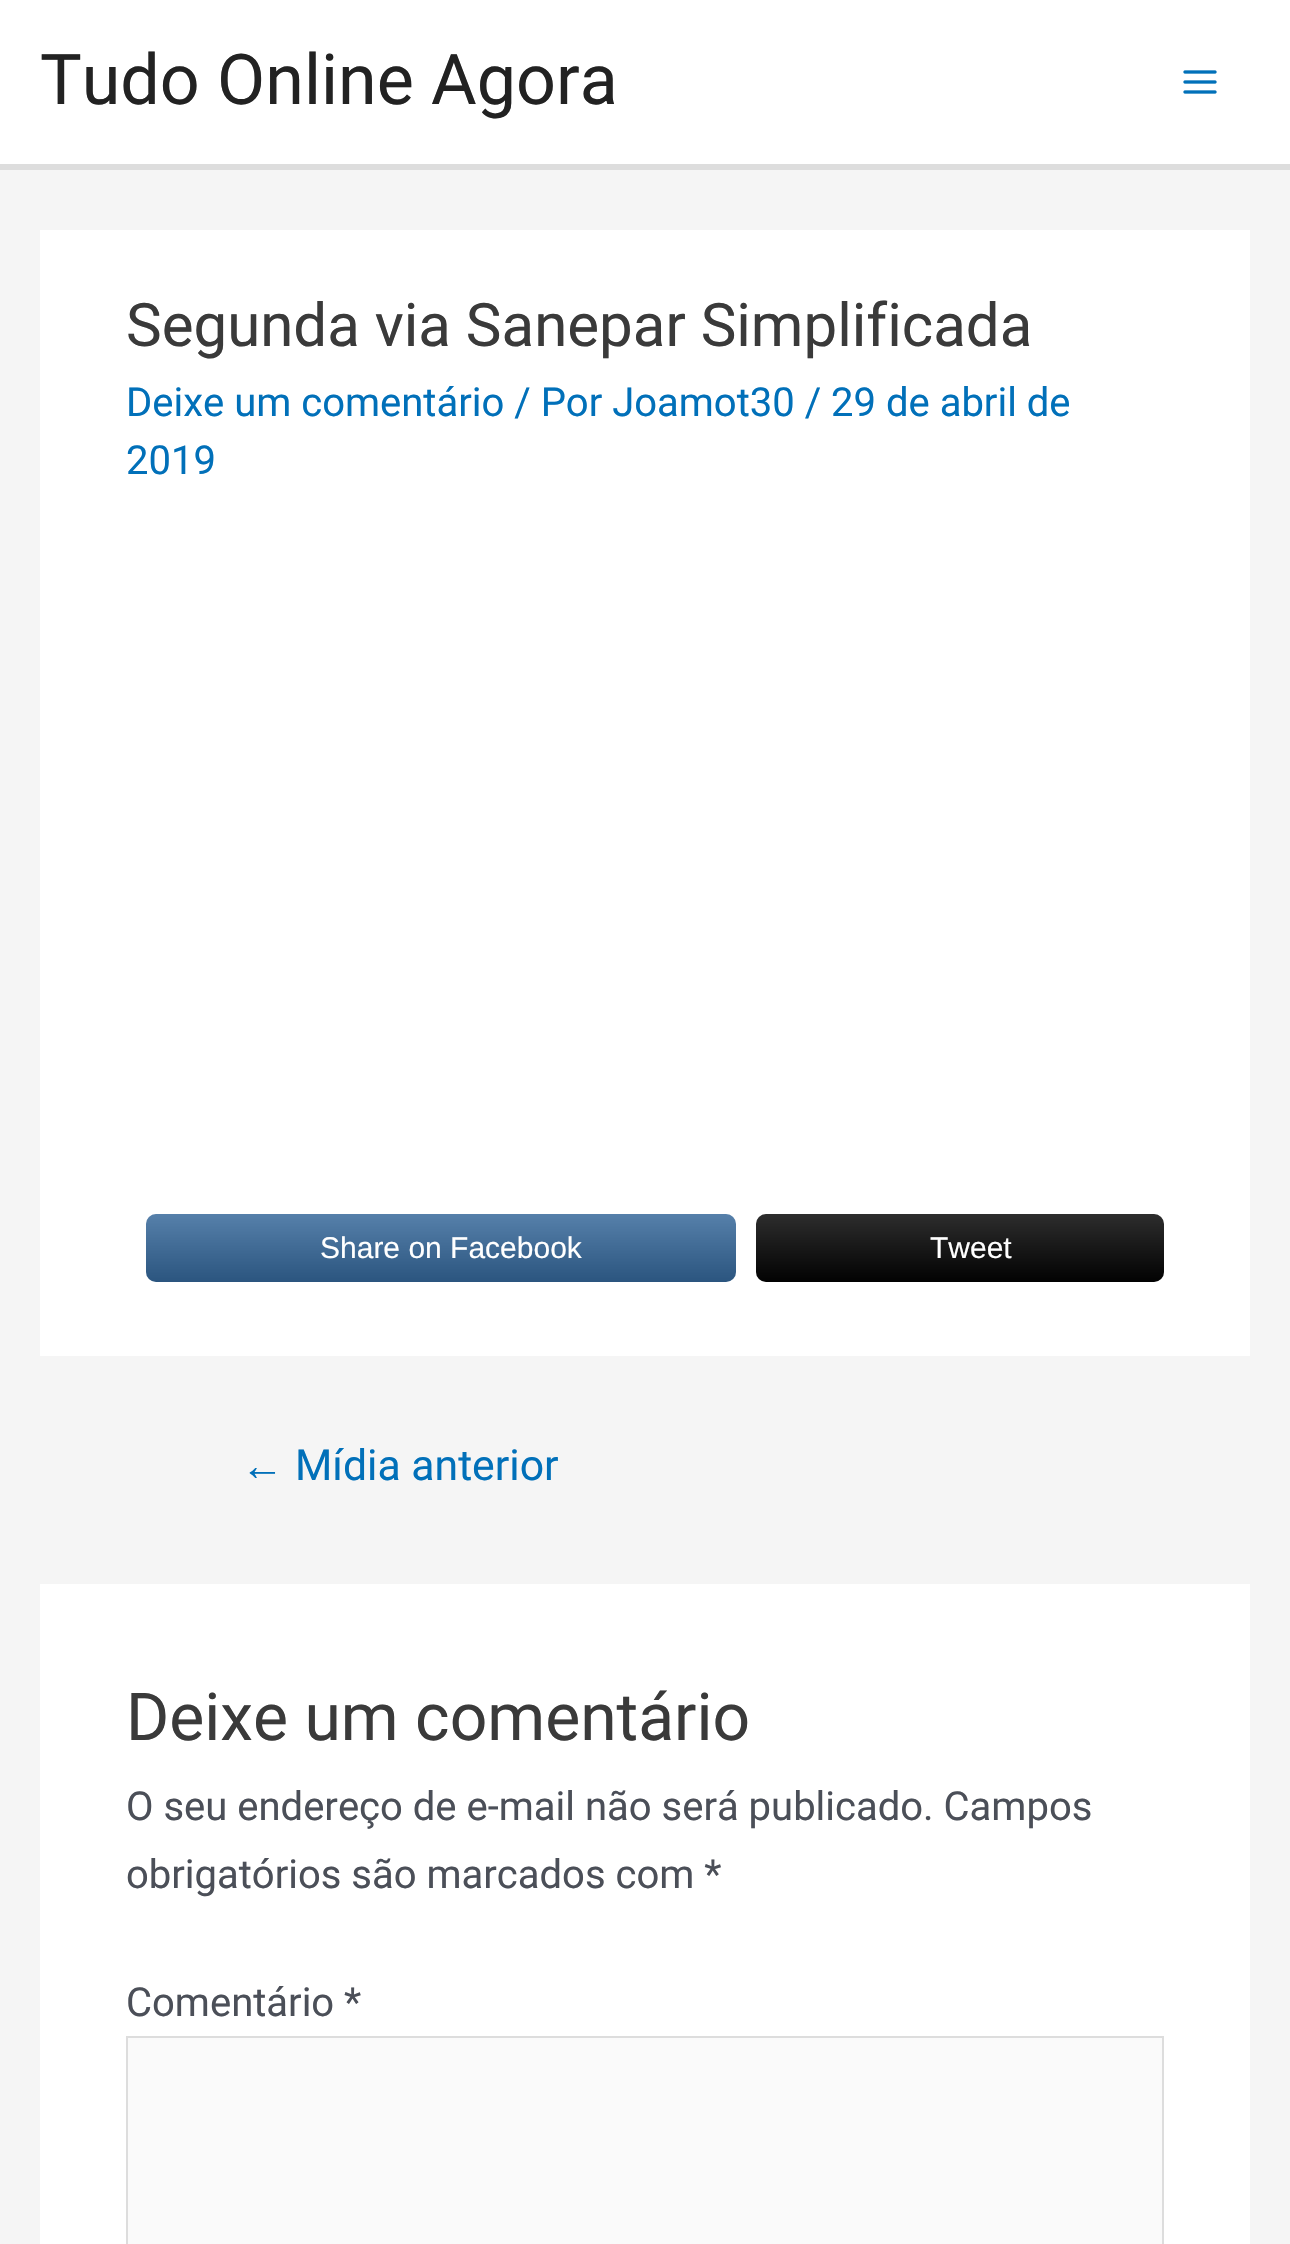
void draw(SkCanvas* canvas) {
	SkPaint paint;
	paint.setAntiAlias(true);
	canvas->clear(0xfff5f5f5);
	paint.setColor(0xffffffff);
	canvas->drawRect(SkRect::MakeXYWH(0, 0, 1290, 164), paint);
	paint.setColor(0xffdddddd);
	canvas->drawRect(SkRect::MakeXYWH(0, 164, 1290, 6), paint);
	SkFont f1(fontMgr->matchFamilyStyle("Roboto", SkFontStyle::Normal()), 70);
	f1.setSubpixel(true);
	paint.setColor(0xff222222);
	canvas->drawString("Tudo Online Agora", 40, 104, f1, paint);
	canvas->drawImageRect(SkImages::DeferredFromEncodedData(SkData::MakeFromFileName("img1.png")), SkRect::MakeXYWH(1183, 70, 34, 24), SkSamplingOptions());
	paint.setColor(0xffffffff);
	canvas->drawRect(SkRect::MakeXYWH(40, 230, 1210, 1126), paint);
	SkFont f2(fontMgr->matchFamilyStyle("Roboto", SkFontStyle::Normal()), 60);
	f2.setSubpixel(true);
	paint.setColor(0xff3a3a3a);
	canvas->drawString("Segunda via Sanepar Simplificada", 126, 346, f2, paint);
	SkFont f3(fontMgr->matchFamilyStyle("Roboto", SkFontStyle::Normal()), 40);
	f3.setSubpixel(true);
	paint.setColor(0xff0170b9);
	canvas->drawString("Deixe um comentário / Por Joamot30 / 29 de abril de", 126, 416, f3, paint);
	canvas->drawString("2019", 126, 474, f3, paint);
	paint.setColor(0xff336699);
	canvas->drawRoundRect(SkRect::MakeXYWH(146, 1214, 590, 68), 10, 10, paint);
	{
		const SkColor colors[] = {0x2b000000, 0x2bffffff};
		const float stops[] = {0, 1};
		const SkPoint ends[] = {{441, 1282}, {441, 1214}};
		paint.setShader(SkGradientShader::MakeLinear(ends, colors, stops, 2, SkTileMode::kClamp));
		paint.setAlpha(255);
	}
	canvas->drawRoundRect(SkRect::MakeXYWH(146, 1214, 590, 68), 10, 10, paint);
	SkFont f4(fontMgr->matchFamilyStyle("Liberation Sans", SkFontStyle::Normal()), 30);
	f4.setSubpixel(true);
	paint.setShader(nullptr);
	paint.setColor(0xffffffff);
	canvas->drawString("Share on Facebook", 320, 1258, f4, paint);
	paint.setColor(0xff020202);
	canvas->drawRoundRect(SkRect::MakeXYWH(756, 1214, 408, 68), 10, 10, paint);
	{
		const SkColor colors[] = {0x2b000000, 0x2bffffff};
		const float stops[] = {0, 1};
		const SkPoint ends[] = {{960, 1282}, {960, 1214}};
		paint.setShader(SkGradientShader::MakeLinear(ends, colors, stops, 2, SkTileMode::kClamp));
		paint.setAlpha(255);
	}
	canvas->drawRoundRect(SkRect::MakeXYWH(756, 1214, 408, 68), 10, 10, paint);
	paint.setShader(nullptr);
	paint.setColor(0xffffffff);
	canvas->drawString("Tweet", 930, 1258, f4, paint);
	SkFont f5(fontMgr->matchFamilyStyle("Liberation Sans", SkFontStyle::Normal()), 42.75);
	f5.setSubpixel(true);
	paint.setColor(0xff0170b9);
	canvas->drawString("←", 241, 1480, f5, paint);
	SkFont f6(fontMgr->matchFamilyStyle("Roboto", SkFontStyle::Normal()), 42.75);
	f6.setSubpixel(true);
	canvas->drawString("Mídia anterior", 295, 1480, f6, paint);
	paint.setColor(0xffffffff);
	canvas->drawRect(SkRect::MakeXYWH(40, 1584, 1210, 660), paint);
	SkFont f7(fontMgr->matchFamilyStyle("Roboto", SkFontStyle::Normal()), 66);
	f7.setSubpixel(true);
	paint.setColor(0xff3a3a3a);
	canvas->drawString("Deixe um comentário", 126, 1740, f7, paint);
	paint.setColor(0xff4b4f58);
	canvas->drawString("O seu endereço de e-mail não será publicado. Campos", 126, 1820, f3, paint);
	canvas->drawString("obrigatórios são marcados com *", 126, 1888, f3, paint);
	canvas->drawString("Comentário *", 126, 2016, f3, paint);
	paint.setColor(0xfffafafa);
	canvas->drawRect(SkRect::MakeXYWH(127, 2037, 1036, 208), paint);
	paint.setStroke(true);
	paint.setStrokeWidth(2);
	paint.setColor(0xffdddddd);
	canvas->drawRect(SkRect::MakeXYWH(127, 2037, 1036, 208), paint);
}
